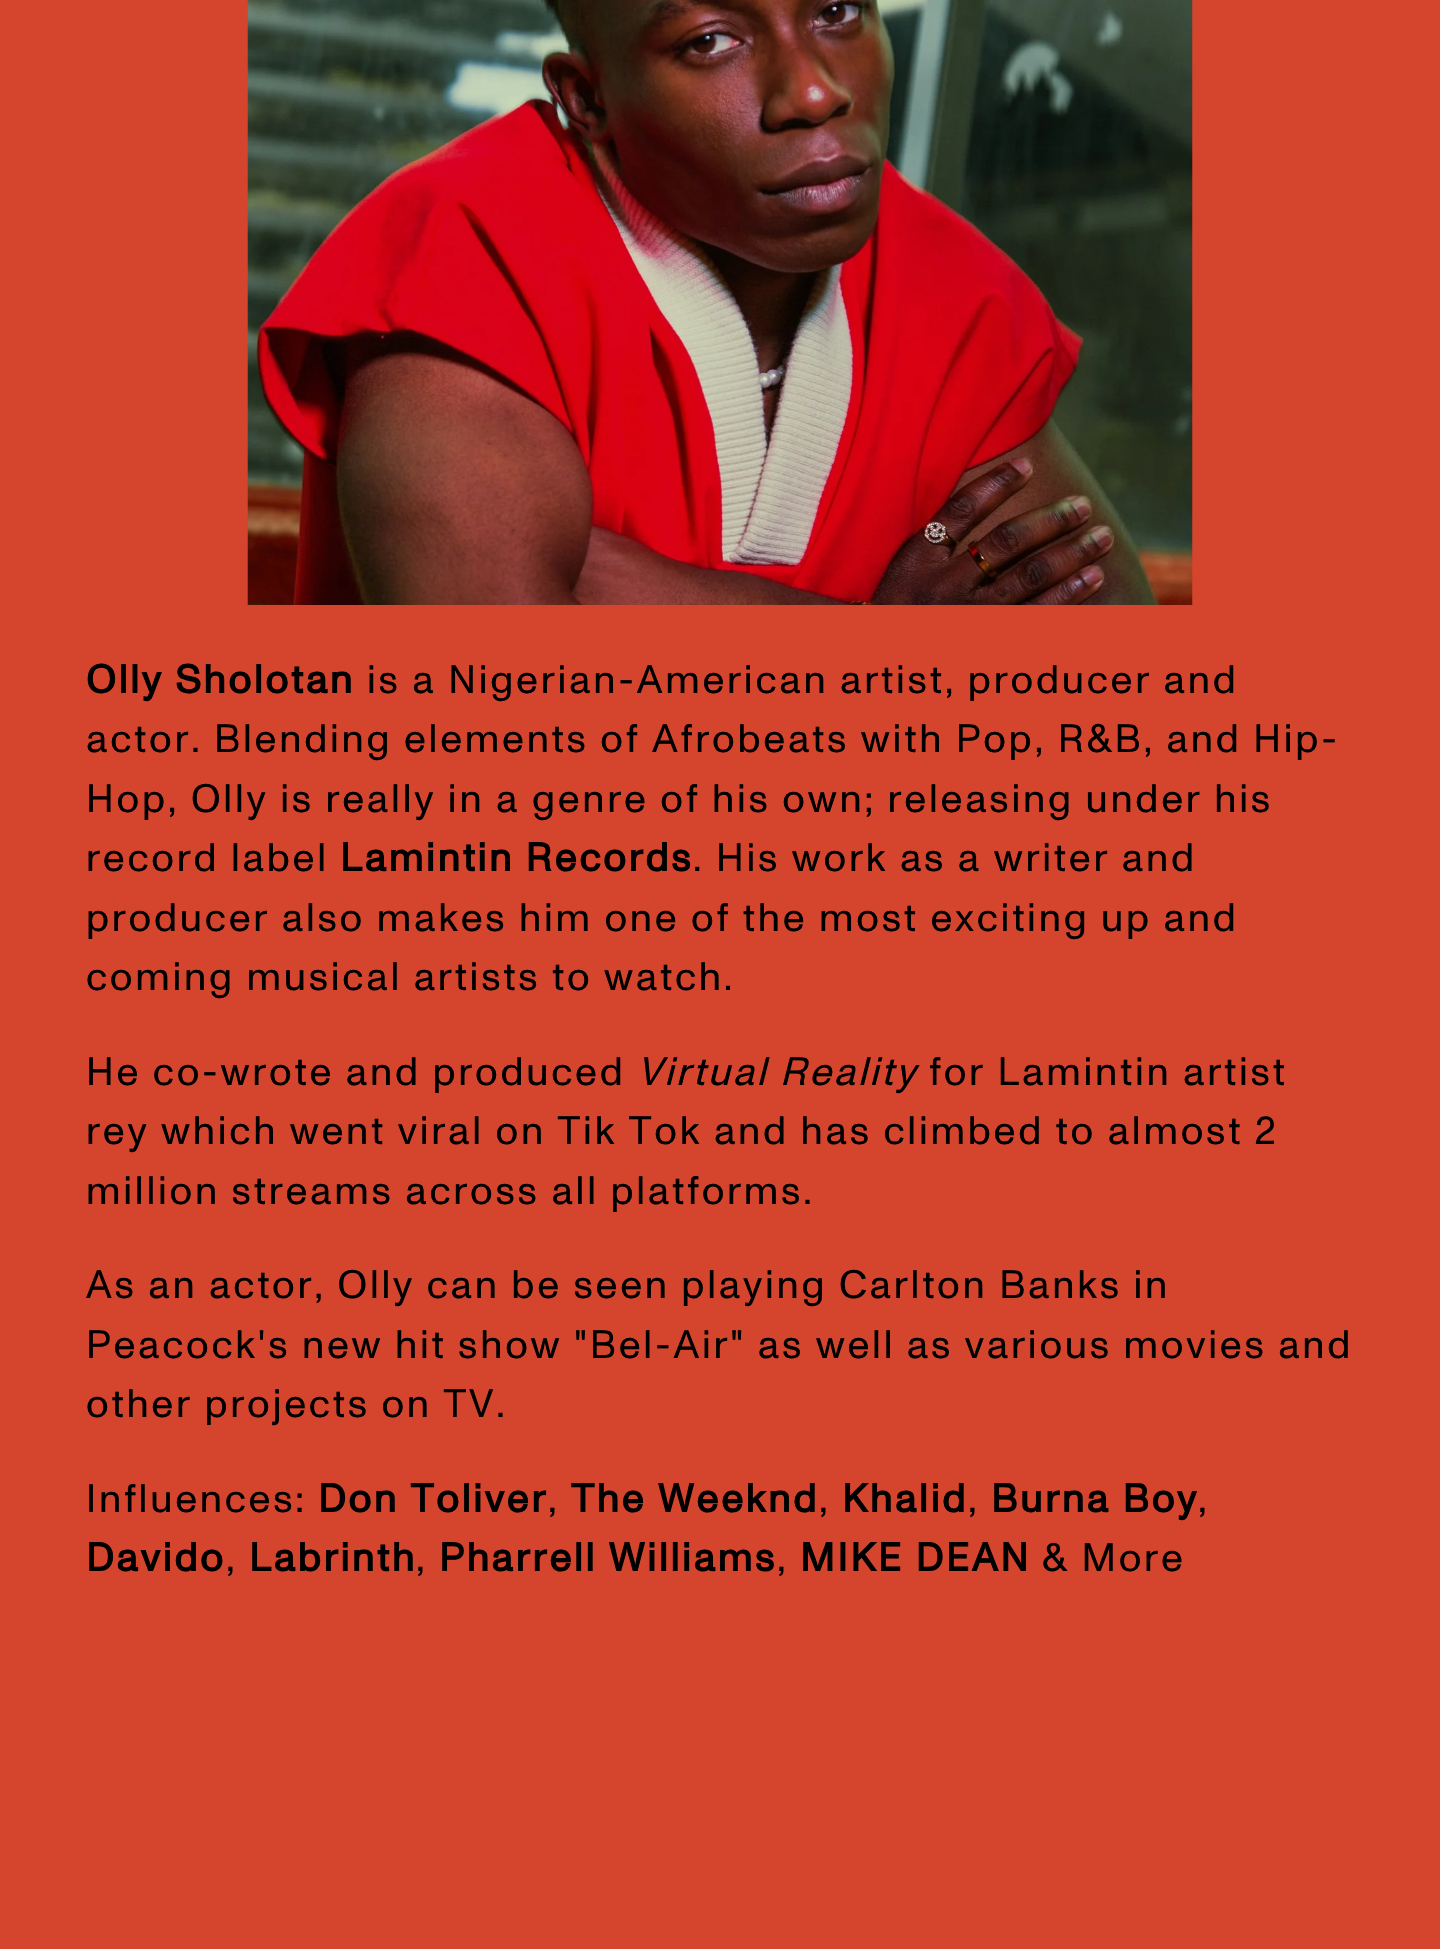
void draw(SkCanvas* canvas) {
	SkPaint paint;
	paint.setAntiAlias(true);
	auto spacedText = [&](const char* s, float x, float y, const SkFont& font, const SkPaint& ink, float letter, float word) {
		std::vector<SkGlyphID> glyphs(font.countText(s, strlen(s), SkTextEncoding::kUTF8));
		std::vector<float> xs(glyphs.size());
		font.textToGlyphs(s, strlen(s), SkTextEncoding::kUTF8, glyphs);
		font.getXPos(glyphs, xs, x);
		float extra = 0;
		for (size_t i = 0; i < glyphs.size(); i++) {
			xs[i] += extra;
			extra += letter + word * (glyphs[i] == font.unicharToGlyph(' '));
		}
		canvas->drawTextBlob(SkTextBlob::MakeFromPosHGlyphs(glyphs, xs, y, font), 0, 0, ink);
	};
	canvas->clear(0xffd5442d);
	canvas->drawImageRect(SkImages::DeferredFromEncodedData(SkData::MakeFromFileName("img1.png")), SkRect::MakeXYWH(247, 0, 946, 605), SkSamplingOptions());
	SkFont f1(fontMgr->matchFamilyStyle("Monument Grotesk", SkFontStyle::Bold()), 39.7);
	f1.setSubpixel(true);
	paint.setColor(0xff000000);
	spacedText("Olly Sholotan", 86, 693, f1, paint, 2.78, 0);
	SkFont f2(fontMgr->matchFamilyStyle("Monument Grotesk", SkFontStyle::Normal()), 39.7);
	f2.setSubpixel(true);
	spacedText("is a Nigerian-American artist, producer and", 367, 693, f2, paint, 2.78, 0);
	spacedText("actor. Blending elements of Afrobeats with Pop, R&B, and Hip-", 86, 752, f2, paint, 2.78, 0);
	spacedText("Hop, Olly is really in a genre of his own; releasing under his", 86, 812, f2, paint, 2.78, 0);
	spacedText("record label", 86, 871, f2, paint, 2.78, 0);
	spacedText("Lamintin Records", 340, 871, f1, paint, 2.78, 0);
	spacedText(". His work as a writer and", 693, 871, f2, paint, 2.78, 0);
	spacedText("producer also makes him one of the most exciting up and", 86, 931, f2, paint, 2.78, 0);
	spacedText("coming musical artists to watch.", 86, 990, f2, paint, 2.78, 0);
	spacedText("He co-wrote and produced", 86, 1085, f2, paint, 2.78, 0);
	SkFont f3(fontMgr->matchFamilyStyle("Monument Grotesk", SkFontStyle::Italic()), 39.7);
	f3.setSubpixel(true);
	spacedText("Virtual Reality", 637, 1085, f3, paint, 2.78, 0);
	spacedText("for Lamintin artist", 929, 1085, f2, paint, 2.78, 0);
	spacedText("rey which went viral on Tik Tok and has climbed to almost 2", 86, 1144, f2, paint, 2.78, 0);
	spacedText("million streams across all platforms.", 86, 1204, f2, paint, 2.78, 0);
	spacedText("As an actor, Olly can be seen playing Carlton Banks in", 86, 1298, f2, paint, 2.78, 0);
	spacedText("Peacock's new hit show \"Bel-Air\" as well as various movies and", 86, 1358, f2, paint, 2.78, 0);
	spacedText("other projects on TV.", 86, 1417, f2, paint, 2.78, 0);
	spacedText("Influences:", 86, 1512, f2, paint, 2.78, 0);
	spacedText("Don Toliver", 318, 1512, f1, paint, 2.78, 0);
	spacedText(",", 548, 1512, f2, paint, 2.78, 0);
	spacedText("The Weeknd", 571, 1512, f1, paint, 2.78, 0);
	spacedText(",", 819, 1512, f2, paint, 2.78, 0);
	spacedText("Khalid", 842, 1512, f1, paint, 2.78, 0);
	spacedText(",", 968, 1512, f2, paint, 2.78, 0);
	spacedText("Burna Boy", 991, 1512, f1, paint, 2.78, 0);
	spacedText(",", 1198, 1512, f2, paint, 2.78, 0);
	spacedText("Davido", 86, 1571, f1, paint, 2.78, 0);
	spacedText(",", 226, 1571, f2, paint, 2.78, 0);
	spacedText("Labrinth", 249, 1571, f1, paint, 2.78, 0);
	spacedText(",", 416, 1571, f2, paint, 2.78, 0);
	spacedText("Pharrell Williams", 439, 1571, f1, paint, 2.78, 0);
	spacedText(",", 777, 1571, f2, paint, 2.78, 0);
	spacedText("MIKE DEAN", 800, 1571, f1, paint, 2.78, 0);
	spacedText("& More", 1042, 1571, f2, paint, 2.78, 0);
}
